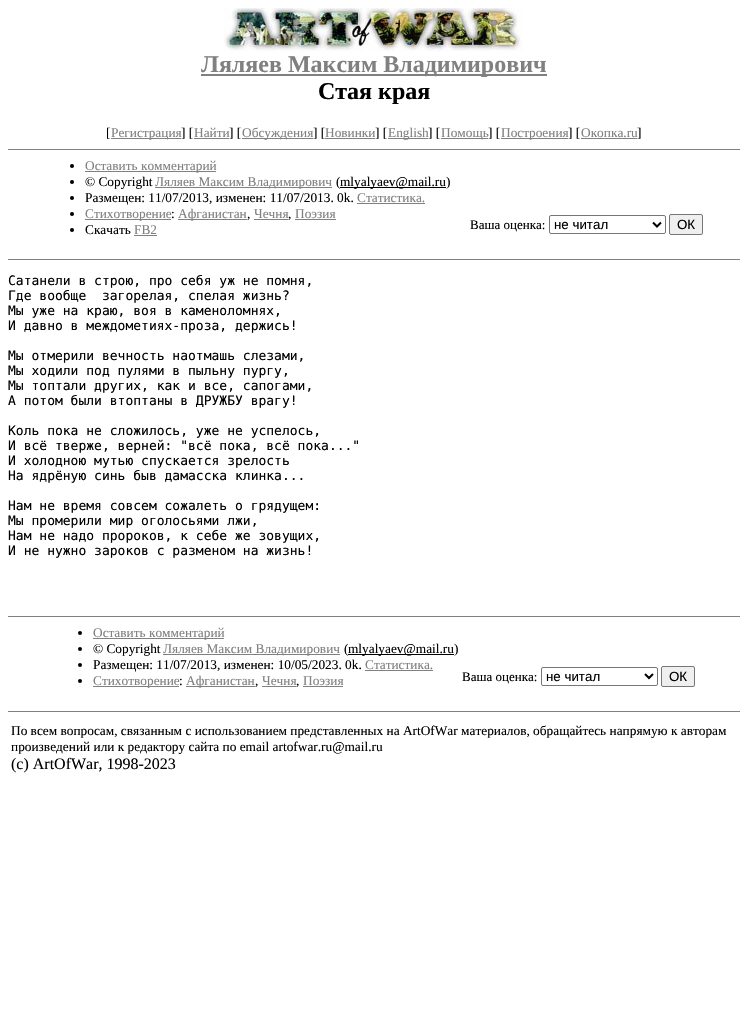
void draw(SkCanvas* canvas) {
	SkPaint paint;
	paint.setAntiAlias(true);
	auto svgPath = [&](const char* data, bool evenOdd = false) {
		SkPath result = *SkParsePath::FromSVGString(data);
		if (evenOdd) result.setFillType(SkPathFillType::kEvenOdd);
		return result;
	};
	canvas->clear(0xffffffff);
	canvas->drawImageRect(SkImages::DeferredFromEncodedData(SkData::MakeFromFileName("img1.png")), SkRect::MakeXYWH(224, 8, 299, 43), SkSamplingOptions());
	paint.setColor(0xff808080);
	canvas->drawRect(SkRect::MakeXYWH(201, 74, 346, 2), paint);
	SkFont f1(fontMgr->matchFamilyStyle("Liberation Serif", SkFontStyle::Bold()), 24);
	f1.setSubpixel(true);
	canvas->drawString("Ляляев Максим Владимирович", 201, 72, f1, paint);
	paint.setColor(0xff000000);
	canvas->drawString("Стая края", 318, 99, f1, paint);
	SkFont f2(fontMgr->matchFamilyStyle("Liberation Serif", SkFontStyle::Normal()), 13.33);
	f2.setSubpixel(true);
	canvas->drawString("[", 106, 137, f2, paint);
	paint.setColor(0xff808080);
	canvas->drawRect(SkRect::MakeXYWH(111, 138, 70, 1), paint);
	canvas->drawString("Регистрация", 111, 137, f2, paint);
	paint.setColor(0xff000000);
	canvas->drawString("] [", 181, 137, f2, paint);
	paint.setColor(0xff808080);
	canvas->drawRect(SkRect::MakeXYWH(194, 138, 35, 1), paint);
	canvas->drawString("Найти", 194, 137, f2, paint);
	paint.setColor(0xff000000);
	canvas->drawString("] [", 229, 137, f2, paint);
	paint.setColor(0xff808080);
	canvas->drawRect(SkRect::MakeXYWH(242, 138, 71, 1), paint);
	canvas->drawString("Обсуждения", 242, 137, f2, paint);
	paint.setColor(0xff000000);
	canvas->drawString("] [", 313, 137, f2, paint);
	paint.setColor(0xff808080);
	canvas->drawRect(SkRect::MakeXYWH(325, 138, 50, 1), paint);
	canvas->drawString("Новинки", 325, 137, f2, paint);
	paint.setColor(0xff000000);
	canvas->drawString("] [", 375, 137, f2, paint);
	paint.setColor(0xff808080);
	canvas->drawRect(SkRect::MakeXYWH(388, 138, 40, 1), paint);
	canvas->drawString("English", 388, 137, f2, paint);
	paint.setColor(0xff000000);
	canvas->drawString("] [", 428, 137, f2, paint);
	paint.setColor(0xff808080);
	canvas->drawRect(SkRect::MakeXYWH(441, 138, 47, 1), paint);
	canvas->drawString("Помощь", 441, 137, f2, paint);
	paint.setColor(0xff000000);
	canvas->drawString("] [", 488, 137, f2, paint);
	paint.setColor(0xff808080);
	canvas->drawRect(SkRect::MakeXYWH(501, 138, 67, 1), paint);
	canvas->drawString("Построения", 501, 137, f2, paint);
	paint.setColor(0xff000000);
	canvas->drawString("] [", 568, 137, f2, paint);
	paint.setColor(0xff808080);
	canvas->drawRect(SkRect::MakeXYWH(581, 138, 56, 1), paint);
	canvas->drawString("Окопка.ru", 581, 137, f2, paint);
	paint.setColor(0xff000000);
	canvas->drawString("]", 637, 137, f2, paint);
	paint.setColor(0xff808080);
	canvas->drawRect(SkRect::MakeXYWH(8, 149, 732, 1), paint);
	paint.setColor(0xff000000);
	canvas->drawCircle(72, 166, 2, paint);
	paint.setColor(0xff808080);
	canvas->drawRect(SkRect::MakeXYWH(85, 171, 131, 1), paint);
	canvas->drawString("Оставить комментарий", 85, 170, f2, paint);
	paint.setColor(0xff000000);
	canvas->drawCircle(72, 182, 2, paint);
	canvas->drawString("© Copyright", 85, 186, f2, paint);
	paint.setColor(0xff808080);
	canvas->drawRect(SkRect::MakeXYWH(155, 187, 177, 1), paint);
	canvas->drawString("Ляляев Максим Владимирович", 155, 186, f2, paint);
	paint.setColor(0xff000000);
	canvas->drawString("(", 336, 186, f2, paint);
	canvas->drawRect(SkRect::MakeXYWH(340, 187, 106, 1), paint);
	canvas->drawString("mlyalyaev@mail.ru)", 340, 186, f2, paint);
	canvas->drawCircle(72, 198, 2, paint);
	canvas->drawString("Размещен: 11/07/2013, изменен: 11/07/2013. 0k.", 85, 202, f2, paint);
	paint.setColor(0xff808080);
	canvas->drawString("Статистика.", 357, 202, f2, paint);
	canvas->drawRect(SkRect::MakeXYWH(357, 203, 68, 1), paint);
	paint.setColor(0xff000000);
	canvas->drawCircle(72, 214, 2, paint);
	paint.setColor(0xff808080);
	canvas->drawRect(SkRect::MakeXYWH(85, 219, 86, 1), paint);
	canvas->drawString("Стихотворение", 85, 218, f2, paint);
	paint.setColor(0xff000000);
	canvas->drawString(":", 171, 218, f2, paint);
	paint.setColor(0xff808080);
	canvas->drawRect(SkRect::MakeXYWH(178, 219, 69, 1), paint);
	canvas->drawString("Афганистан", 178, 218, f2, paint);
	canvas->drawString("Чечня", 254, 218, f2, paint);
	canvas->drawRect(SkRect::MakeXYWH(254, 219, 34, 1), paint);
	canvas->drawString("Поэзия", 295, 218, f2, paint);
	canvas->drawRect(SkRect::MakeXYWH(295, 219, 41, 1), paint);
	paint.setColor(0xff000000);
	canvas->drawString(",", 247, 218, f2, paint);
	canvas->drawString(",", 288, 218, f2, paint);
	canvas->drawCircle(72, 230, 2, paint);
	canvas->drawString("Скачать", 85, 234, f2, paint);
	paint.setColor(0xff808080);
	canvas->drawString("FB2", 134, 234, f2, paint);
	canvas->drawRect(SkRect::MakeXYWH(134, 235, 23, 1), paint);
	SkFont f3(fontMgr->matchFamilyStyle("Liberation Serif", SkFontStyle::Normal()), 13);
	f3.setSubpixel(true);
	paint.setColor(0xff000000);
	canvas->drawString("Ваша оценка:", 470, 229, f3, paint);
	paint.setStroke(true);
	paint.setStrokeWidth(1);
	paint.setColor(0xff767676);
	canvas->drawRoundRect(SkRect::MakeXYWH(549.5, 215.5, 116, 18), 1.5, 1.5, paint);
	paint.setStrokeWidth(2);
	paint.setColor(0xff000000);
	canvas->drawPath(svgPath("M653 222.5L657 226.5L661 222.5"), paint);
	SkFont f4(fontMgr->matchFamilyStyle("Liberation Sans", SkFontStyle::Normal()), 13.33);
	f4.setSubpixel(true);
	paint.setStroke(false);
	canvas->drawString("не читал", 554, 229, f4, paint);
	paint.setColor(0xffefefef);
	canvas->drawRoundRect(SkRect::MakeXYWH(669.5, 214.5, 33, 20), 1.5, 1.5, paint);
	paint.setStroke(true);
	paint.setStrokeWidth(1);
	paint.setColor(0xff767676);
	canvas->drawRoundRect(SkRect::MakeXYWH(669.5, 214.5, 33, 20), 1.5, 1.5, paint);
	paint.setStroke(false);
	paint.setColor(0xff000000);
	canvas->drawString("ОК", 677, 229, f4, paint);
	paint.setColor(0xff808080);
	canvas->drawRect(SkRect::MakeXYWH(8, 259, 732, 1), paint);
	SkFont f5(fontMgr->matchFamilyStyle("DejaVu Sans Mono", SkFontStyle::Normal()), 13);
	f5.setSubpixel(true);
	paint.setColor(0xff000000);
	canvas->drawString("Сатанели в строю, про себя уж не помня,", 8, 285, f5, paint);
	canvas->drawString("Где вообще  загорелая, спелая жизнь?", 8, 300, f5, paint);
	canvas->drawString("Мы уже на краю, воя в каменоломнях,", 8, 315, f5, paint);
	canvas->drawString("И давно в междометиях-проза, держись!", 8, 330, f5, paint);
	canvas->drawString("Мы отмерили вечность наотмашь слезами,", 8, 360, f5, paint);
	canvas->drawString("Мы ходили под пулями в пыльну пургу,", 8, 375, f5, paint);
	canvas->drawString("Мы топтали других, как и все, сапогами,", 8, 390, f5, paint);
	canvas->drawString("А потом были втоптаны в ДРУЖБУ врагу!", 8, 405, f5, paint);
	canvas->drawString("Коль пока не сложилось, уже не успелось,", 8, 435, f5, paint);
	canvas->drawString("И всё тверже, верней: \"всё пока, всё пока...\"", 8, 450, f5, paint);
	canvas->drawString("И холодною мутью спускается зрелость", 8, 465, f5, paint);
	canvas->drawString("На ядрёную синь быв дамасска клинка...", 8, 480, f5, paint);
	canvas->drawString("Нам не время совсем сожалеть о грядущем:", 8, 510, f5, paint);
	canvas->drawString("Мы промерили мир оголосьями лжи,", 8, 525, f5, paint);
	canvas->drawString("Нам не надо пророков, к себе же зовущих,", 8, 540, f5, paint);
	canvas->drawString("И не нужно зароков с разменом на жизнь!", 8, 555, f5, paint);
	paint.setColor(0xff808080);
	canvas->drawRect(SkRect::MakeXYWH(8, 616, 732, 1), paint);
	paint.setColor(0xff000000);
	canvas->drawCircle(80, 633, 2, paint);
	paint.setColor(0xff808080);
	canvas->drawRect(SkRect::MakeXYWH(93, 638, 131, 1), paint);
	canvas->drawString("Оставить комментарий", 93, 637, f2, paint);
	paint.setColor(0xff000000);
	canvas->drawCircle(80, 649, 2, paint);
	canvas->drawString("© Copyright", 93, 653, f2, paint);
	paint.setColor(0xff808080);
	canvas->drawRect(SkRect::MakeXYWH(163, 654, 177, 1), paint);
	canvas->drawString("Ляляев Максим Владимирович", 163, 653, f2, paint);
	paint.setColor(0xff000000);
	canvas->drawString("(", 344, 653, f2, paint);
	canvas->drawRect(SkRect::MakeXYWH(348, 654, 106, 1), paint);
	canvas->drawString("mlyalyaev@mail.ru)", 348, 653, f2, paint);
	canvas->drawCircle(80, 665, 2, paint);
	canvas->drawString("Размещен: 11/07/2013, изменен: 10/05/2023. 0k.", 93, 669, f2, paint);
	paint.setColor(0xff808080);
	canvas->drawString("Статистика.", 365, 669, f2, paint);
	canvas->drawRect(SkRect::MakeXYWH(365, 670, 68, 1), paint);
	paint.setColor(0xff000000);
	canvas->drawCircle(80, 681, 2, paint);
	paint.setColor(0xff808080);
	canvas->drawRect(SkRect::MakeXYWH(93, 686, 86, 1), paint);
	canvas->drawString("Стихотворение", 93, 685, f2, paint);
	paint.setColor(0xff000000);
	canvas->drawString(":", 179, 685, f2, paint);
	paint.setColor(0xff808080);
	canvas->drawRect(SkRect::MakeXYWH(186, 686, 69, 1), paint);
	canvas->drawString("Афганистан", 186, 685, f2, paint);
	canvas->drawString("Чечня", 262, 685, f2, paint);
	canvas->drawRect(SkRect::MakeXYWH(262, 686, 34, 1), paint);
	canvas->drawString("Поэзия", 303, 685, f2, paint);
	canvas->drawRect(SkRect::MakeXYWH(303, 686, 40, 1), paint);
	paint.setColor(0xff000000);
	canvas->drawString(",", 255, 685, f2, paint);
	canvas->drawString(",", 296, 685, f2, paint);
	canvas->drawString("Ваша оценка:", 462, 681, f3, paint);
	paint.setStroke(true);
	paint.setColor(0xff767676);
	canvas->drawRoundRect(SkRect::MakeXYWH(541.5, 667.5, 116, 18), 1.5, 1.5, paint);
	paint.setStrokeWidth(2);
	paint.setColor(0xff000000);
	canvas->drawPath(svgPath("M645 674L649 678L653 674"), paint);
	paint.setStroke(false);
	canvas->drawString("не читал", 546, 681, f4, paint);
	paint.setColor(0xffefefef);
	canvas->drawRoundRect(SkRect::MakeXYWH(661.5, 666.5, 33, 20), 1.5, 1.5, paint);
	paint.setStroke(true);
	paint.setStrokeWidth(1);
	paint.setColor(0xff767676);
	canvas->drawRoundRect(SkRect::MakeXYWH(661.5, 666.5, 33, 20), 1.5, 1.5, paint);
	paint.setStroke(false);
	paint.setColor(0xff000000);
	canvas->drawString("ОК", 669, 681, f4, paint);
	paint.setColor(0xff808080);
	canvas->drawRect(SkRect::MakeXYWH(8, 711, 732, 1), paint);
	paint.setColor(0xff000000);
	canvas->drawString("По всем вопросам, связанным с использованием представленных на ArtOfWar материалов, обращайтесь напрямую к авторам", 11, 735, f2, paint);
	canvas->drawString("произведений или к редактору сайта по email artofwar.ru@mail.ru", 11, 751, f2, paint);
	SkFont f6(fontMgr->matchFamilyStyle("Liberation Serif", SkFontStyle::Normal()), 16);
	f6.setSubpixel(true);
	canvas->drawString("(с) ArtOfWar, 1998-2023", 11, 769, f6, paint);
}
